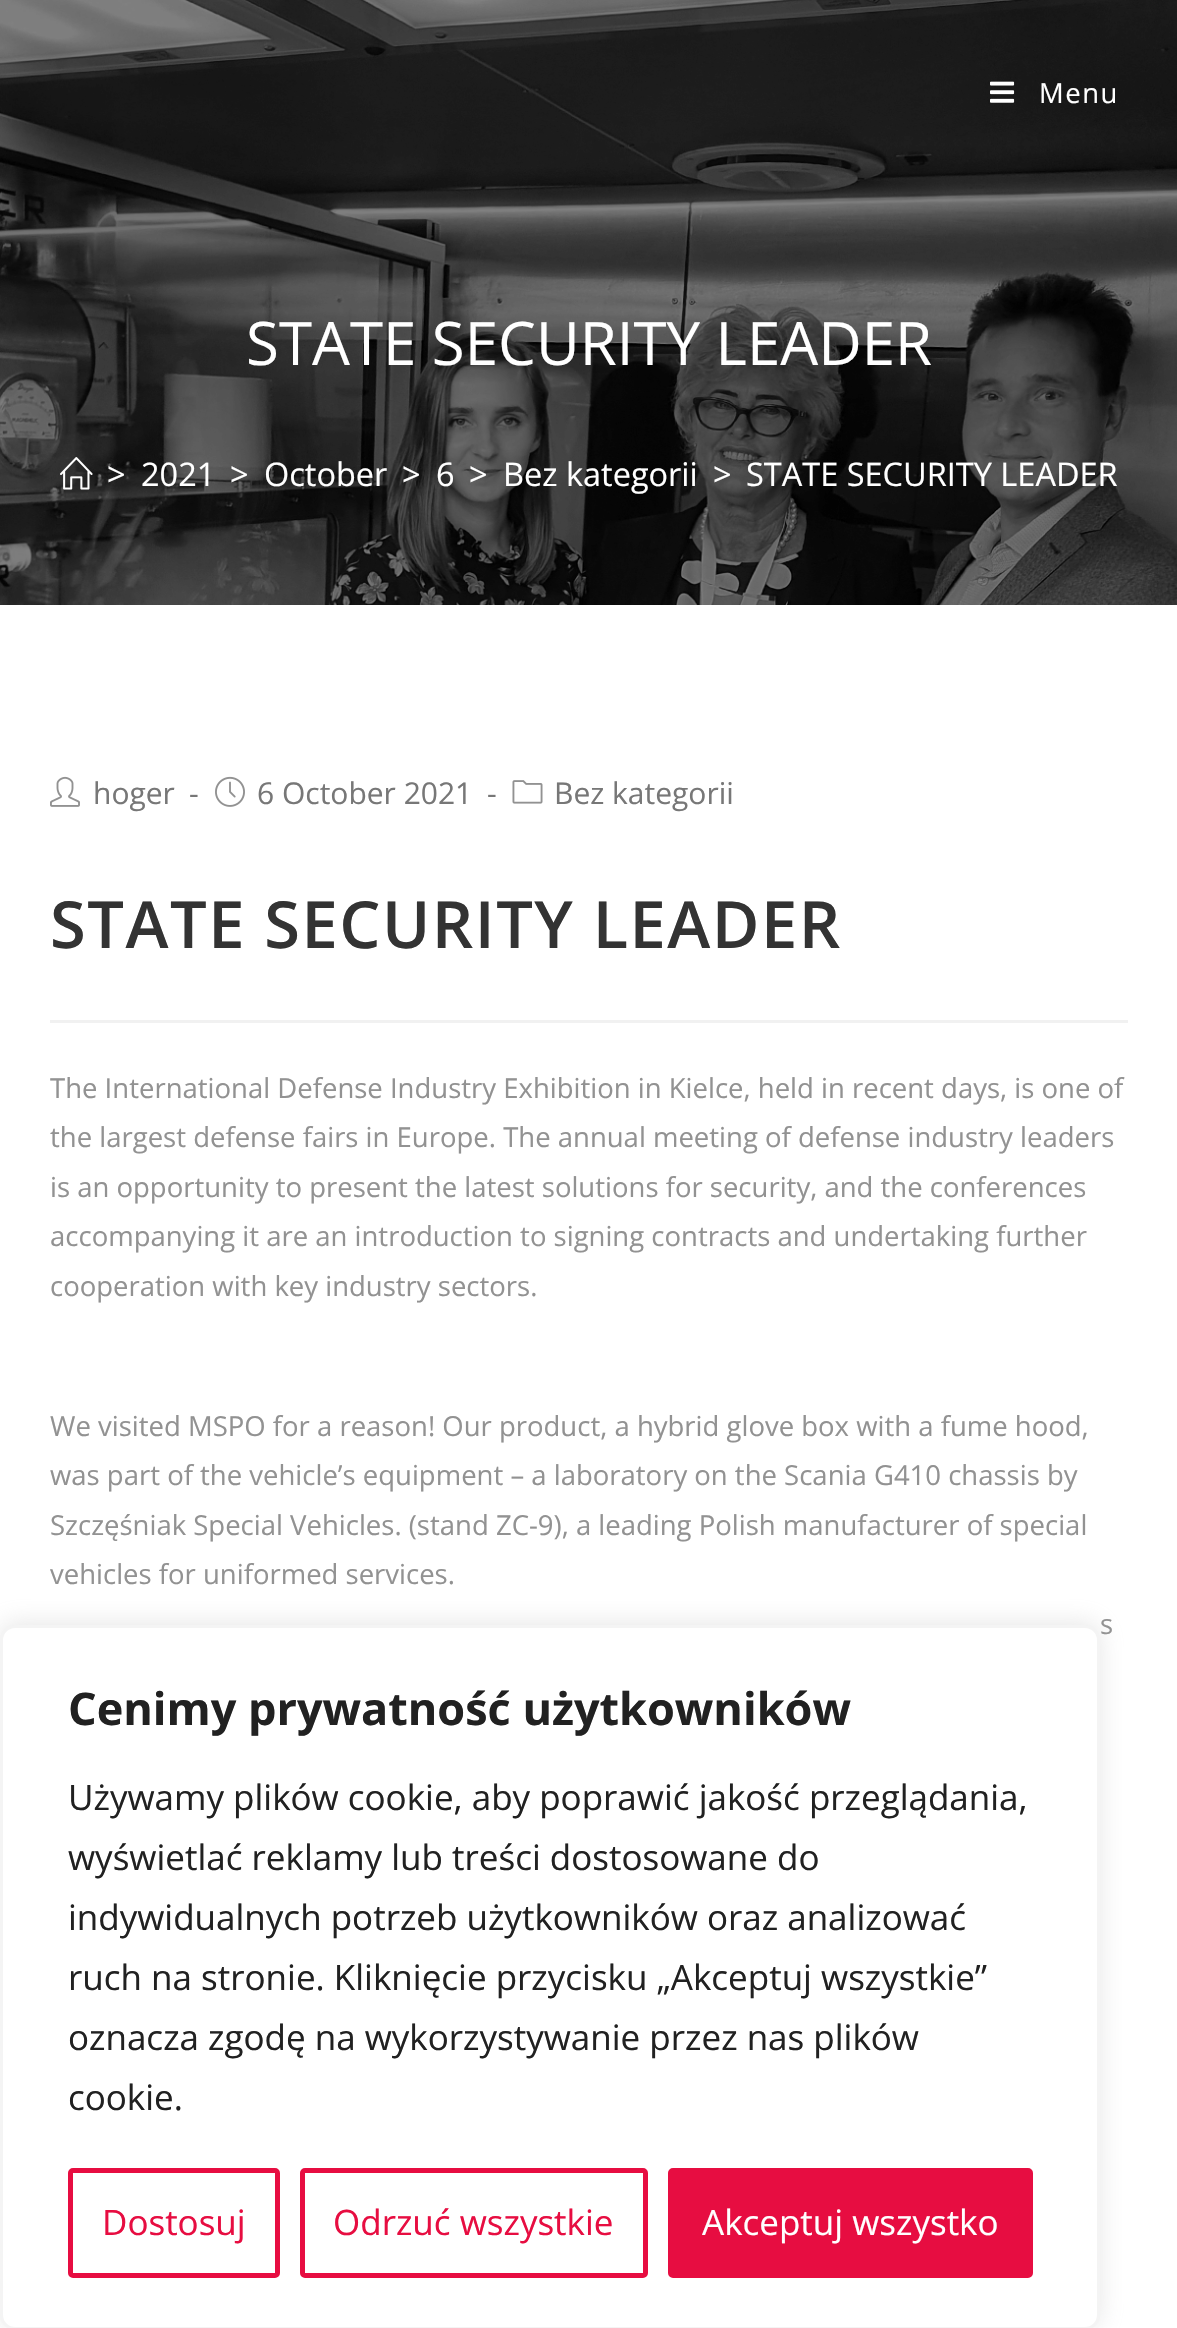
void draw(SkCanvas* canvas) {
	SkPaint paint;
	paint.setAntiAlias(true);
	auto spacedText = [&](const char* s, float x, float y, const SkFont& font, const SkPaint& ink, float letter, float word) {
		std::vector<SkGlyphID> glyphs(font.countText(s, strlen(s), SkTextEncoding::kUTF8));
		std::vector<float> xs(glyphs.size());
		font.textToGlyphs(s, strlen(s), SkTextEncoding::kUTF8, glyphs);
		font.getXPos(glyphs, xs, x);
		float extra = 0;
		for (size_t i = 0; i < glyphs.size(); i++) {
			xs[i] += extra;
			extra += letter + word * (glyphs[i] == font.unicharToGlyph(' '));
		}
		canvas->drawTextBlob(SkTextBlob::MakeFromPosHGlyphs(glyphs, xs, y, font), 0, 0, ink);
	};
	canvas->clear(0xffffffff);
	canvas->drawImageRect(SkImages::DeferredFromEncodedData(SkData::MakeFromFileName("img2.png")), SkRect::MakeXYWH(0, 0, 1177, 605), SkSamplingOptions());
	canvas->drawImageRect(SkImages::DeferredFromEncodedData(SkData::MakeFromFileName("img1.png")), SkRect::MakeXYWH(990, 81, 25, 22), SkSamplingOptions());
	SkFont f1(fontMgr->matchFamilyStyle("Open Sans", SkFontStyle::Normal()), 27.5);
	f1.setSubpixel(true);
	paint.setColor(0xffffffff);
	spacedText("Menu", 1039, 103, f1, paint, 1.5, 0);
	SkFont f2(fontMgr->matchFamilyStyle("Open Sans", SkFontStyle::Normal()), 60);
	f2.setSubpixel(true);
	canvas->drawString("STATE SECURITY LEADER", 246, 365, f2, paint);
	canvas->drawImageRect(SkImages::DeferredFromEncodedData(SkData::MakeFromFileName("img3.png")), SkRect::MakeXYWH(60, 457, 33, 33), SkSamplingOptions());
	SkFont f3(fontMgr->matchFamilyStyle("Open Sans", SkFontStyle::Normal()), 32.5);
	f3.setSubpixel(true);
	canvas->drawString(">", 107, 486, f3, paint);
	canvas->drawString("2021", 141, 486, f3, paint);
	canvas->drawString(">", 230, 486, f3, paint);
	canvas->drawString("October", 264, 486, f3, paint);
	canvas->drawString(">", 402, 486, f3, paint);
	canvas->drawString("6", 436, 486, f3, paint);
	canvas->drawString(">", 469, 486, f3, paint);
	canvas->drawString("Bez kategorii", 503, 486, f3, paint);
	canvas->drawString(">", 713, 486, f3, paint);
	canvas->drawString("STATE SECURITY LEADER", 746, 486, f3, paint);
	canvas->drawImageRect(SkImages::DeferredFromEncodedData(SkData::MakeFromFileName("img4.png")), SkRect::MakeXYWH(50, 776, 30, 31), SkSamplingOptions());
	SkFont f4(fontMgr->matchFamilyStyle("Open Sans", SkFontStyle::Normal()), 30);
	f4.setSubpixel(true);
	paint.setColor(0xff777777);
	canvas->drawString("hoger", 93, 804, f4, paint);
	canvas->drawString("-", 189, 804, f4, paint);
	canvas->drawImageRect(SkImages::DeferredFromEncodedData(SkData::MakeFromFileName("img5.png")), SkRect::MakeXYWH(215, 776, 30, 31), SkSamplingOptions());
	canvas->drawString("6 October 2021", 257, 804, f4, paint);
	canvas->drawString("-", 487, 804, f4, paint);
	canvas->drawImageRect(SkImages::DeferredFromEncodedData(SkData::MakeFromFileName("img6.png")), SkRect::MakeXYWH(512, 780, 31, 24), SkSamplingOptions());
	canvas->drawString("Bez kategorii", 554, 804, f4, paint);
	paint.setColor(0xfff1f1f1);
	canvas->drawRect(SkRect::MakeXYWH(50, 1020, 1078, 3), paint);
	SkFont f5(fontMgr->matchFamilyStyle("Open Sans", SkFontStyle(600, SkFontStyle::kNormal_Width, SkFontStyle::kUpright_Slant)), 65);
	f5.setSubpixel(true);
	paint.setColor(0xff333333);
	spacedText("STATE SECURITY LEADER", 50, 948, f5, paint, 1.5, 0);
	paint.setColor(0xff929292);
	canvas->drawString("The International Defense Industry Exhibition in Kielce, held in recent days, is one of", 50, 1098, f1, paint);
	canvas->drawString("the largest defense fairs in Europe. The annual meeting of defense industry leaders", 50, 1147, f1, paint);
	canvas->drawString("is an opportunity to present the latest solutions for security, and the conferences", 50, 1197, f1, paint);
	canvas->drawString("accompanying it are an introduction to signing contracts and undertaking further", 50, 1246, f1, paint);
	canvas->drawString("cooperation with key industry sectors.", 50, 1296, f1, paint);
	canvas->drawString("We visited MSPO for a reason! Our product, a hybrid glove box with a fume hood,", 50, 1436, f1, paint);
	canvas->drawString("was part of the vehicle’s equipment – a laboratory on the Scania G410 chassis by", 50, 1485, f1, paint);
	canvas->drawString("Szczęśniak Special Vehicles. (stand ZC-9), a leading Polish manufacturer of special", 50, 1535, f1, paint);
	canvas->drawString("vehicles for uniformed services.", 50, 1584, f1, paint);
	canvas->drawString("s", 1100, 1634, f1, paint);
	paint.setColor(0x4dacabab);
	paint.setMaskFilter(SkMaskFilter::MakeBlur(kNormal_SkBlurStyle, 12.5));
	canvas->drawRoundRect(SkRect::MakeXYWH(0, 1623, 1100, 705), 15, 15, paint);
	paint.setMaskFilter(nullptr);
	paint.setColor(0xffffffff);
	canvas->drawRoundRect(SkRect::MakeXYWH(1.5, 1626.5, 1097, 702), 13.5, 13.5, paint);
	paint.setStroke(true);
	paint.setStrokeWidth(3);
	paint.setColor(0xfff4f4f4);
	canvas->drawRoundRect(SkRect::MakeXYWH(1.5, 1626.5, 1097, 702), 13.5, 13.5, paint);
	SkFont f6(fontMgr->matchFamilyStyle("Open Sans", SkFontStyle::Bold()), 45);
	f6.setSubpixel(true);
	paint.setStroke(false);
	paint.setColor(0xff212121);
	canvas->drawString("Cenimy prywatność użytkowników", 68, 1725, f6, paint);
	SkFont f7(fontMgr->matchFamilyStyle("Open Sans", SkFontStyle::Normal()), 35);
	f7.setSubpixel(true);
	canvas->drawString("Używamy plików cookie, aby poprawić jakość przeglądania,", 68, 1810, f7, paint);
	canvas->drawString("wyświetlać reklamy lub treści dostosowane do", 68, 1870, f7, paint);
	canvas->drawString("indywidualnych potrzeb użytkowników oraz analizować", 68, 1930, f7, paint);
	canvas->drawString("ruch na stronie. Kliknięcie przycisku „Akceptuj wszystkie”", 68, 1990, f7, paint);
	canvas->drawString("oznacza zgodę na wykorzystywanie przez nas plików", 68, 2050, f7, paint);
	canvas->drawString("cookie.", 68, 2110, f7, paint);
	paint.setStroke(true);
	paint.setStrokeWidth(5);
	paint.setColor(0xffe70d41);
	canvas->drawRoundRect(SkRect::MakeXYWH(70.5, 2170.5, 207, 105), 2.5, 2.5, paint);
	paint.setStroke(false);
	canvas->drawString("Dostosuj", 102, 2235, f7, paint);
	paint.setStroke(true);
	canvas->drawRoundRect(SkRect::MakeXYWH(302.5, 2170.5, 343, 105), 2.5, 2.5, paint);
	paint.setStroke(false);
	canvas->drawString("Odrzuć wszystkie", 333, 2235, f7, paint);
	canvas->drawRoundRect(SkRect::MakeXYWH(670.5, 2170.5, 360, 105), 2.5, 2.5, paint);
	paint.setStroke(true);
	canvas->drawRoundRect(SkRect::MakeXYWH(670.5, 2170.5, 360, 105), 2.5, 2.5, paint);
	paint.setStroke(false);
	paint.setColor(0xffffffff);
	canvas->drawString("Akceptuj wszystko", 702, 2235, f7, paint);
}
